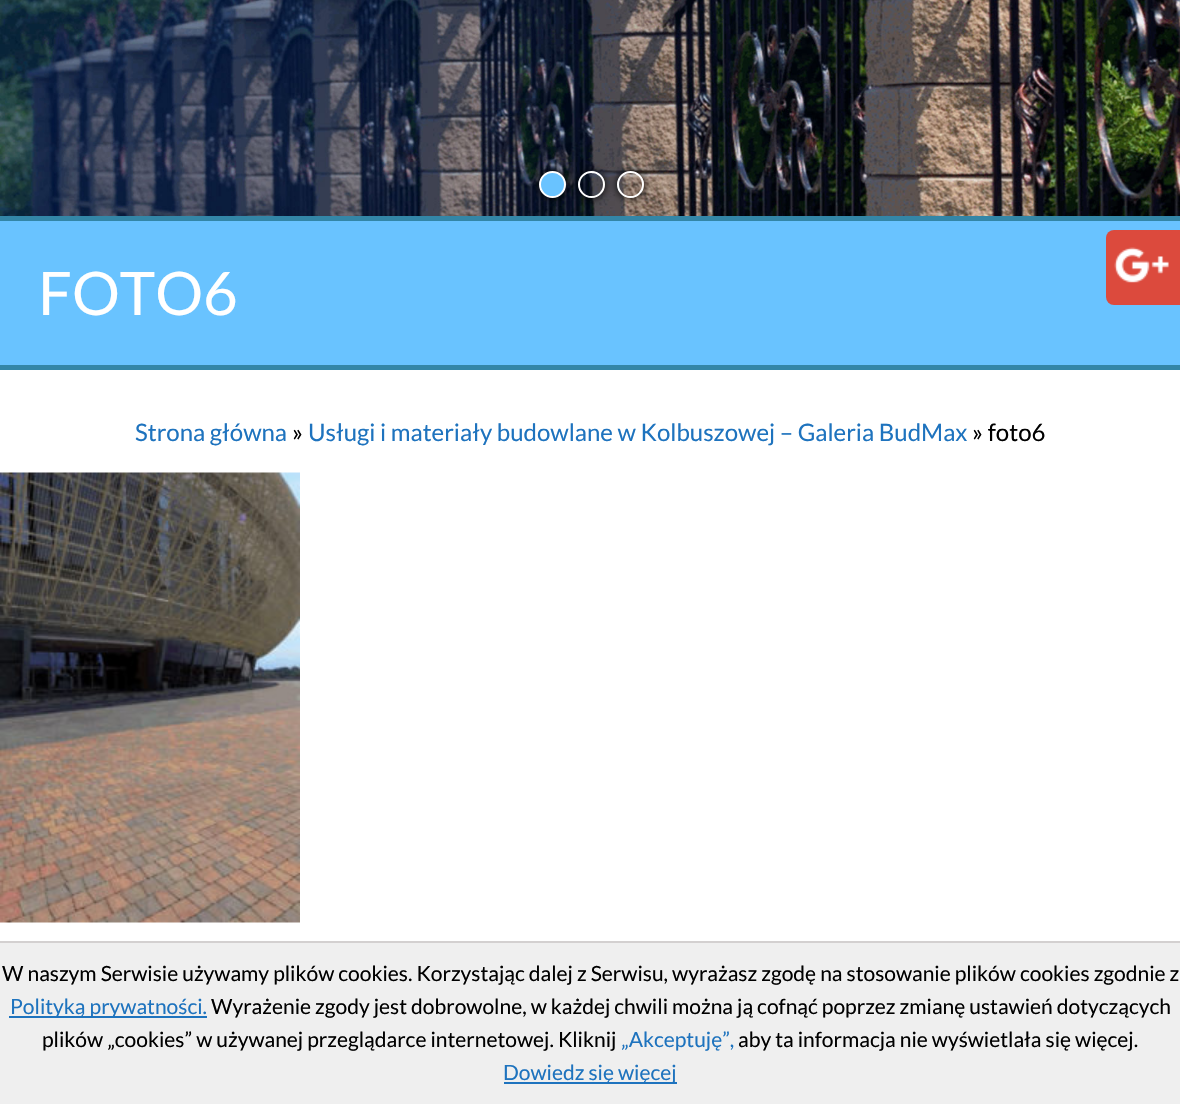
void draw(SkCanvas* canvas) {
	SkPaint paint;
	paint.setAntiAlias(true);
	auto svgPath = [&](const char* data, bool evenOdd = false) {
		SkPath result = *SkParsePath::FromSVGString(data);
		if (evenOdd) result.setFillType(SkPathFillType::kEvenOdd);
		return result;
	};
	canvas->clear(0xffffffff);
	canvas->drawImageRect(SkImages::DeferredFromEncodedData(SkData::MakeFromFileName("img1.png")), SkRect::MakeXYWH(0, 0, 1180, 216), SkSamplingOptions());
	paint.setColor(0xff3386a7);
	canvas->drawRect(SkRect::MakeXYWH(0, 216, 1180, 5), paint);
	paint.setColor(0xff000000);
	paint.setMaskFilter(SkMaskFilter::MakeBlur(kNormal_SkBlurStyle, 4));
	canvas->drawRoundRect(SkRect::MakeXYWH(539, 171, 27, 27), 13.5, 13.5, paint);
	paint.setMaskFilter(nullptr);
	paint.setColor(0xff69c3ff);
	canvas->drawCircle(552.5, 184.5, 12.5, paint);
	paint.setStroke(true);
	paint.setStrokeWidth(2);
	paint.setColor(0xffffffff);
	canvas->drawCircle(552.5, 184.5, 12.5, paint);
	canvas->save();
	canvas->clipPath(svgPath("M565 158H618V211H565ZM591.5 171C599 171 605 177 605 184.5C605 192 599 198 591.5 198C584 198 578 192 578 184.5C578 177 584 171 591.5 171Z", true), true);
	paint.setStroke(false);
	paint.setColor(0xff000000);
	paint.setMaskFilter(SkMaskFilter::MakeBlur(kNormal_SkBlurStyle, 4));
	canvas->drawRoundRect(SkRect::MakeXYWH(578, 171, 27, 27), 13.5, 13.5, paint);
	paint.setMaskFilter(nullptr);
	canvas->restore();
	paint.setStroke(true);
	paint.setColor(0xffffffff);
	canvas->drawCircle(591.5, 184.5, 12.5, paint);
	canvas->save();
	canvas->clipPath(svgPath("M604 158H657V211H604ZM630.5 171C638 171 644 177 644 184.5C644 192 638 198 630.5 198C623 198 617 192 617 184.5C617 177 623 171 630.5 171Z", true), true);
	paint.setStroke(false);
	paint.setColor(0xff000000);
	paint.setMaskFilter(SkMaskFilter::MakeBlur(kNormal_SkBlurStyle, 4));
	canvas->drawRoundRect(SkRect::MakeXYWH(617, 171, 27, 27), 13.5, 13.5, paint);
	paint.setMaskFilter(nullptr);
	canvas->restore();
	paint.setStroke(true);
	paint.setColor(0xffffffff);
	canvas->drawCircle(630.5, 184.5, 12.5, paint);
	paint.setStroke(false);
	paint.setColor(0xff69c3ff);
	canvas->drawRect(SkRect::MakeXYWH(0, 221, 1180, 144), paint);
	paint.setColor(0xff3386a7);
	canvas->drawRect(SkRect::MakeXYWH(0, 365, 1180, 5), paint);
	SkFont f1(fontMgr->matchFamilyStyle("Lato", SkFontStyle::Normal()), 60);
	f1.setSubpixel(true);
	paint.setColor(0xffffffff);
	canvas->drawString("FOTO6", 38, 315, f1, paint);
	SkFont f2(fontMgr->matchFamilyStyle("Lato", SkFontStyle::Normal()), 24);
	f2.setSubpixel(true);
	paint.setColor(0xff1e73be);
	canvas->drawString("Strona główna", 135, 441, f2, paint);
	paint.setColor(0xff000000);
	canvas->drawString("»", 292, 441, f2, paint);
	paint.setColor(0xff1e73be);
	canvas->drawString("Usługi i materiały budowlane w Kolbuszowej – Galeria BudMax", 308, 441, f2, paint);
	paint.setColor(0xff000000);
	canvas->drawString("» foto6", 972, 441, f2, paint);
	canvas->drawImageRect(SkImages::DeferredFromEncodedData(SkData::MakeFromFileName("img2.png")), SkRect::MakeXYWH(0, 472, 300, 451), SkSamplingOptions());
	paint.setColor(0xffdc4a3d);
	canvas->drawRoundRect(SkRect::MakeXYWH(1106, 230, 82, 75), 8, 8, paint);
	canvas->drawImageRect(SkImages::DeferredFromEncodedData(SkData::MakeFromFileName("img3.png")), SkRect::MakeXYWH(1114, 247, 55, 36), SkSamplingOptions());
	paint.setColor(0xffefefef);
	canvas->drawRect(SkRect::MakeXYWH(0, 943, 1180, 161), paint);
	paint.setColor(0xffd3d0d0);
	canvas->drawRect(SkRect::MakeXYWH(0, 941, 1180, 2), paint);
	SkFont f3(fontMgr->matchFamilyStyle("Lato", SkFontStyle::Normal()), 21);
	f3.setSubpixel(true);
	paint.setColor(0xff000000);
	canvas->drawString("W naszym Serwisie używamy plików cookies. Korzystając dalej z Serwisu, wyrażasz zgodę na stosowanie plików cookies zgodnie z", 2, 981, f3, paint);
	paint.setColor(0xff1e73be);
	canvas->drawRect(SkRect::MakeXYWH(9, 1016, 198, 2), paint);
	canvas->drawString("Polityką prywatności.", 10, 1014, f3, paint);
	paint.setColor(0xff000000);
	canvas->drawString("Wyrażenie zgody jest dobrowolne, w każdej chwili można ją cofnąć poprzez zmianę ustawień dotyczących", 211, 1014, f3, paint);
	canvas->drawString("plików „cookies” w używanej przeglądarce internetowej. Kliknij", 42, 1047, f3, paint);
	paint.setColor(0xff1e73be);
	canvas->drawString("„Akceptuję”,", 621, 1047, f3, paint);
	paint.setColor(0xff000000);
	canvas->drawString("aby ta informacja nie wyświetlała się więcej.", 738, 1047, f3, paint);
	paint.setColor(0xff1e73be);
	canvas->drawRect(SkRect::MakeXYWH(504, 1082, 173, 2), paint);
	canvas->drawString("Dowiedz się więcej", 503, 1080, f3, paint);
}
